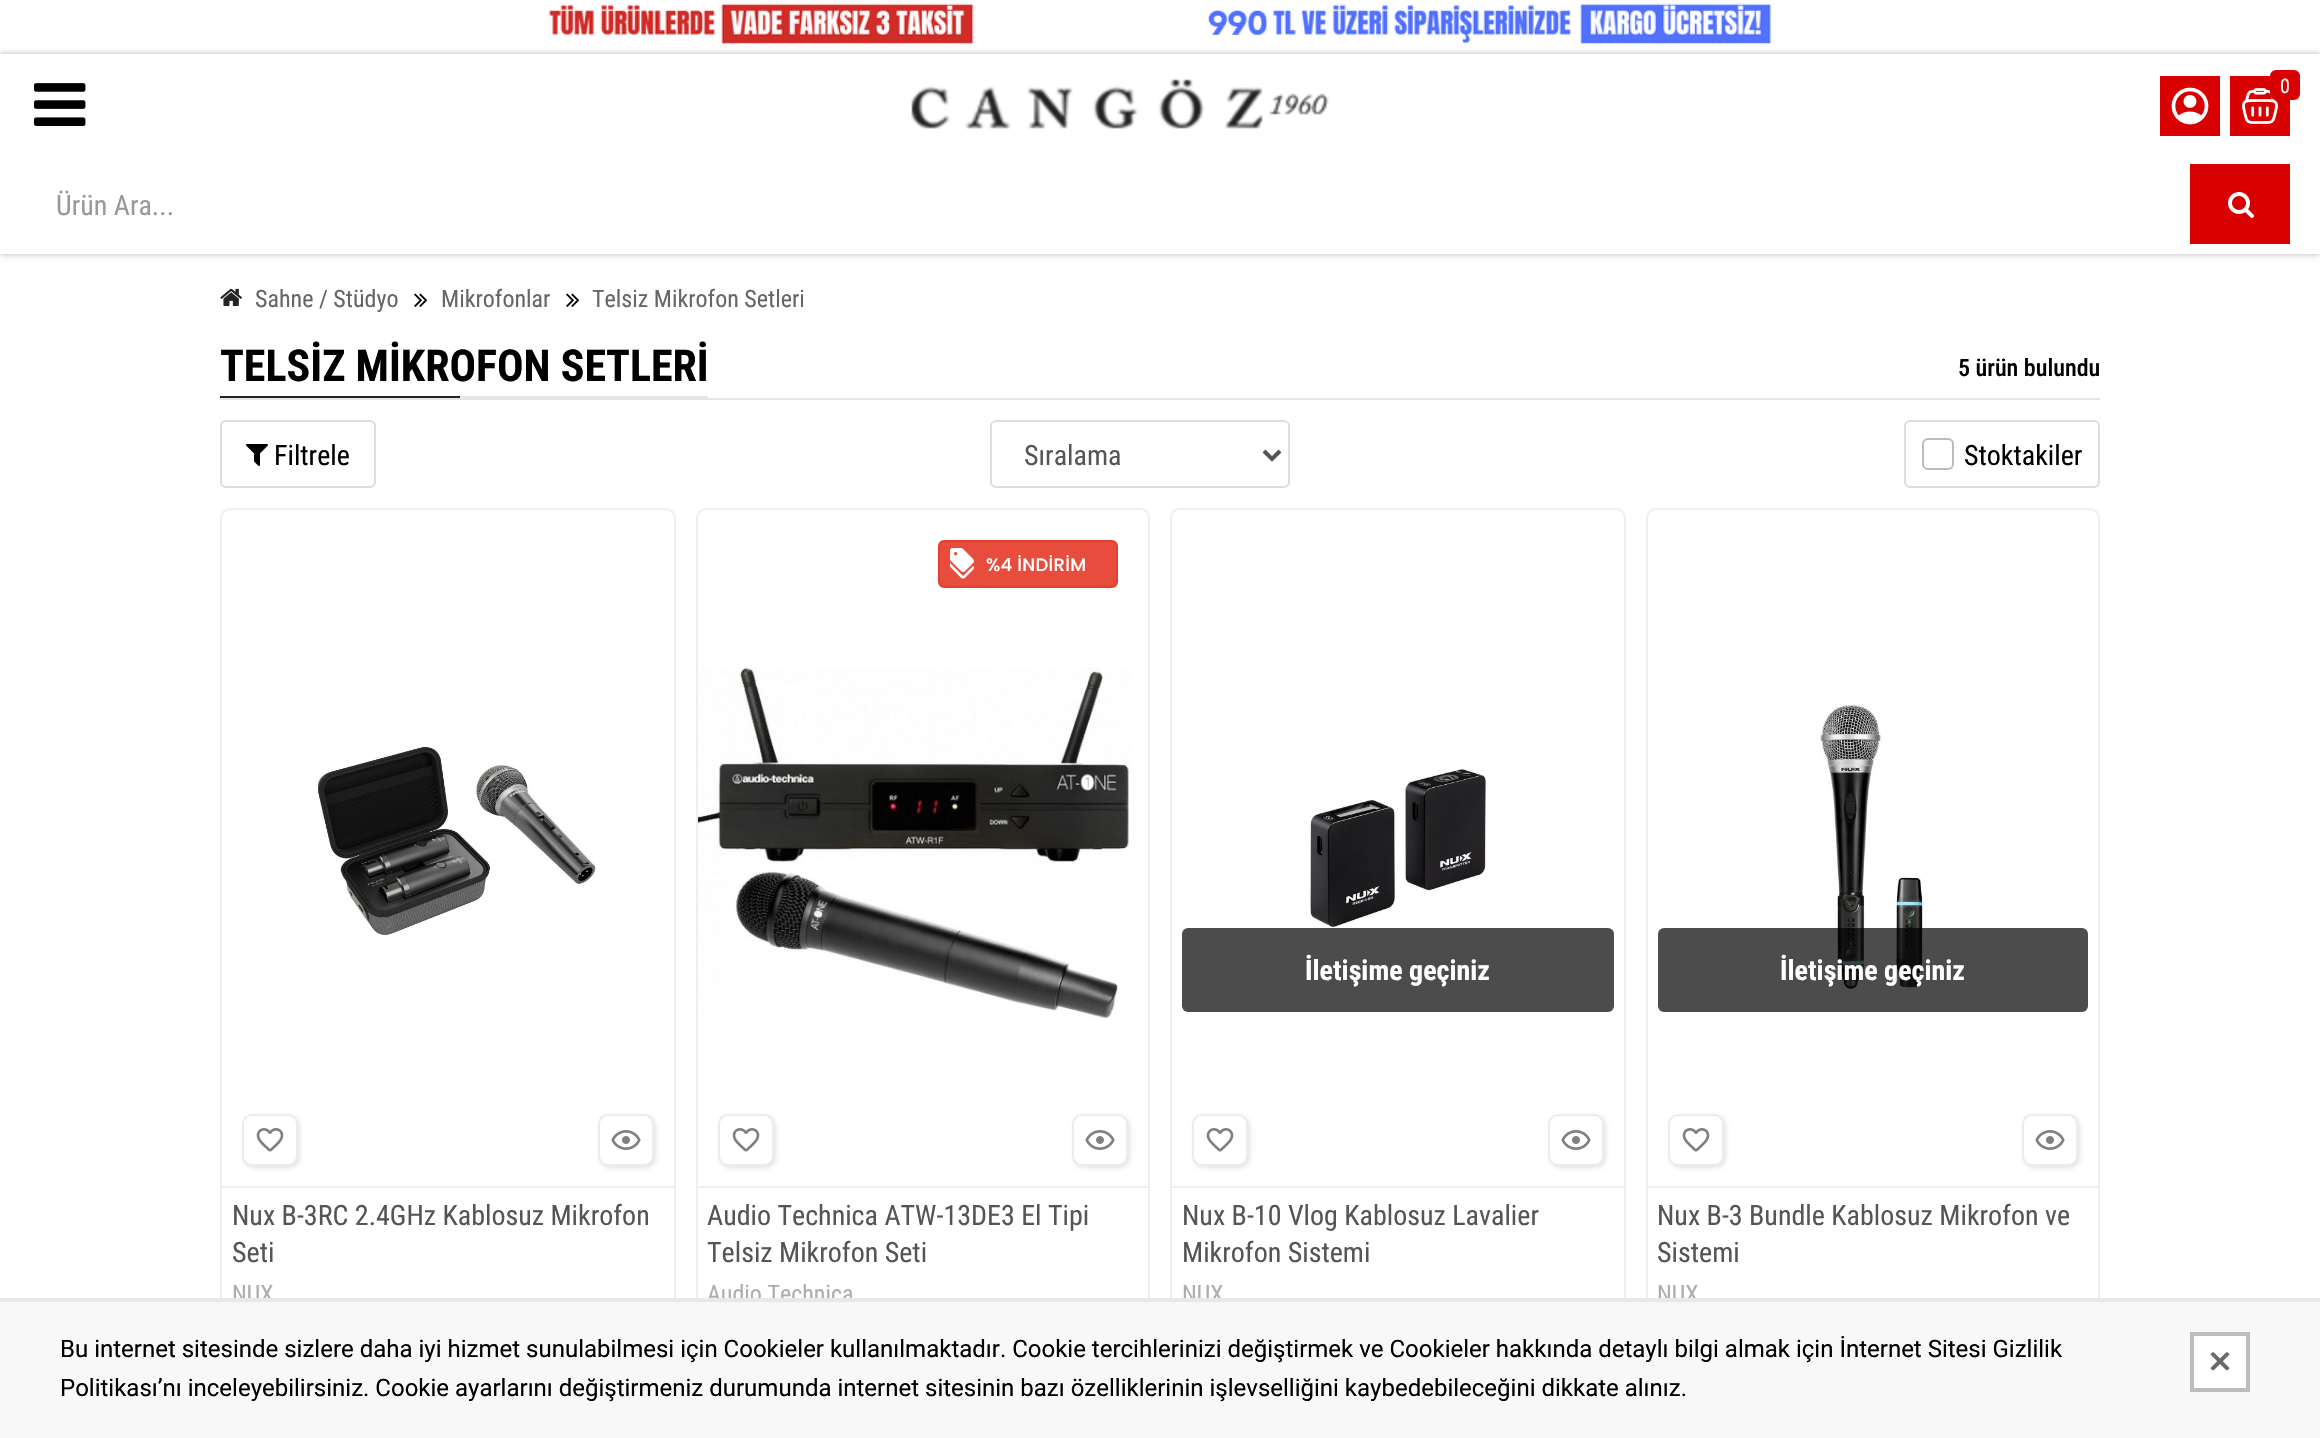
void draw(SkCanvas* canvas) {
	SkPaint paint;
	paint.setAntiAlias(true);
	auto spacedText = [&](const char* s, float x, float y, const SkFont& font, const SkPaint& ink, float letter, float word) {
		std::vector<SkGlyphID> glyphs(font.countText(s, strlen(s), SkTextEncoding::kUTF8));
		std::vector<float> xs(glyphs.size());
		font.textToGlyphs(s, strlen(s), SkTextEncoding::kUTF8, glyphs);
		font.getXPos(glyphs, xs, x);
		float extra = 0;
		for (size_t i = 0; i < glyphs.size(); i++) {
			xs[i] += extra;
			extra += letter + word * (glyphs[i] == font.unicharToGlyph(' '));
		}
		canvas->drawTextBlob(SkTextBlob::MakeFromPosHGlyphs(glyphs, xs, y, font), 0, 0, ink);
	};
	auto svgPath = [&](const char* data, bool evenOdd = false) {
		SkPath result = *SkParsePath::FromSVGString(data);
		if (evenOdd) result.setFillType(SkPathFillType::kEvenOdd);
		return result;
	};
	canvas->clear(0xffffffff);
	canvas->drawImageRect(SkImages::DeferredFromEncodedData(SkData::MakeFromFileName("img1.png")), SkRect::MakeXYWH(549, 3, 1222, 42), SkSamplingOptions());
	paint.setColor(0x4d000000);
	paint.setMaskFilter(SkMaskFilter::MakeBlur(kNormal_SkBlurStyle, 3));
	canvas->drawRect(SkRect::MakeXYWH(0, 54, 2320, 200), paint);
	paint.setMaskFilter(nullptr);
	paint.setColor(0xffffffff);
	canvas->drawRect(SkRect::MakeXYWH(0, 54, 2320, 200), paint);
	canvas->drawImageRect(SkImages::DeferredFromEncodedData(SkData::MakeFromFileName("img2.png")), SkRect::MakeXYWH(911, 79, 418, 50), SkSamplingOptions());
	canvas->drawImageRect(SkImages::DeferredFromEncodedData(SkData::MakeFromFileName("img3.png")), SkRect::MakeXYWH(34, 83, 52, 43), SkSamplingOptions());
	paint.setColor(0xffd90001);
	canvas->drawRect(SkRect::MakeXYWH(2160, 76, 60, 60), paint);
	canvas->drawImageRect(SkImages::DeferredFromEncodedData(SkData::MakeFromFileName("img4.png")), SkRect::MakeXYWH(2171, 87, 38, 38), SkSamplingOptions());
	canvas->drawRect(SkRect::MakeXYWH(2230, 76, 60, 60), paint);
	canvas->drawImageRect(SkImages::DeferredFromEncodedData(SkData::MakeFromFileName("img5.png")), SkRect::MakeXYWH(2242, 88, 36, 36), SkSamplingOptions());
	canvas->drawRoundRect(SkRect::MakeXYWH(2270, 70, 30, 30), 6, 6, paint);
	SkFont f1(fontMgr->matchFamilyStyle("Roboto Condensed", SkFontStyle::Normal()), 20);
	f1.setSubpixel(true);
	paint.setColor(0xffffffff);
	canvas->drawString("0", 2280, 93, f1, paint);
	SkFont f2(fontMgr->matchFamilyStyle("Roboto Condensed", SkFontStyle::Normal()), 28);
	f2.setSubpixel(true);
	paint.setColor(0xff999999);
	canvas->drawString("Ürün Ara...", 56, 215, f2, paint);
	paint.setColor(0xffd90001);
	canvas->drawRect(SkRect::MakeXYWH(2190, 164, 100, 80), paint);
	canvas->drawImageRect(SkImages::DeferredFromEncodedData(SkData::MakeFromFileName("img6.png")), SkRect::MakeXYWH(2228, 192, 26, 26), SkSamplingOptions());
	canvas->drawImageRect(SkImages::DeferredFromEncodedData(SkData::MakeFromFileName("img7.png")), SkRect::MakeXYWH(220, 288, 22, 18), SkSamplingOptions());
	SkFont f3(fontMgr->matchFamilyStyle("Roboto Condensed", SkFontStyle::Normal()), 24);
	f3.setSubpixel(true);
	paint.setColor(0xff666666);
	canvas->drawString("Sahne / Stüdyo", 255, 307, f3, paint);
	canvas->drawImageRect(SkImages::DeferredFromEncodedData(SkData::MakeFromFileName("img8.png")), SkRect::MakeXYWH(414, 293, 14, 14), SkSamplingOptions());
	canvas->drawString("Mikrofonlar", 441, 307, f3, paint);
	canvas->drawImageRect(SkImages::DeferredFromEncodedData(SkData::MakeFromFileName("img8.png")), SkRect::MakeXYWH(566, 293, 14, 14), SkSamplingOptions());
	canvas->drawString("Telsiz Mikrofon Setleri", 592, 307, f3, paint);
	paint.setColor(0xffe6e6e6);
	canvas->drawRect(SkRect::MakeXYWH(220, 398, 1880, 2), paint);
	canvas->drawRect(SkRect::MakeXYWH(460, 396, 248, 2), paint);
	SkFont f4(fontMgr->matchFamilyStyle("Roboto Condensed", SkFontStyle::Bold()), 44);
	f4.setSubpixel(true);
	paint.setColor(0xff000000);
	canvas->drawString("TELSİZ MİKROFON SETLERİ", 220, 381, f4, paint);
	paint.setColor(0xff242424);
	canvas->drawRect(SkRect::MakeXYWH(220, 396, 240, 2), paint);
	SkFont f5(fontMgr->matchFamilyStyle("Roboto Condensed", SkFontStyle(500, SkFontStyle::kNormal_Width, SkFontStyle::kUpright_Slant)), 24);
	f5.setSubpixel(true);
	paint.setColor(0xff000000);
	canvas->drawString("5 ürün bulundu", 1958, 376, f5, paint);
	paint.setStroke(true);
	paint.setStrokeWidth(2);
	paint.setColor(0xffdddddd);
	canvas->drawRoundRect(SkRect::MakeXYWH(221, 421, 154, 66), 5, 5, paint);
	canvas->drawImageRect(SkImages::DeferredFromEncodedData(SkData::MakeFromFileName("img9.png")), SkRect::MakeXYWH(246, 444, 22, 22), SkSamplingOptions());
	paint.setStroke(false);
	paint.setColor(0xff000000);
	canvas->drawString("Filtrele", 274, 465, f2, paint);
	paint.setStroke(true);
	paint.setColor(0xffdddddd);
	canvas->drawRoundRect(SkRect::MakeXYWH(991, 421, 298, 66), 5, 5, paint);
	paint.setStrokeWidth(4);
	paint.setColor(0xff555555);
	canvas->drawPath(svgPath("M1264 451L1272 459L1280 451"), paint);
	paint.setStroke(false);
	canvas->drawString("Sıralama", 1024, 465, f2, paint);
	paint.setStroke(true);
	paint.setStrokeWidth(2);
	paint.setColor(0xffdddddd);
	canvas->drawRoundRect(SkRect::MakeXYWH(1905, 421, 194, 66), 5, 5, paint);
	paint.setColor(0xffbbbbbb);
	canvas->drawRoundRect(SkRect::MakeXYWH(1923, 439, 30, 30), 5, 5, paint);
	paint.setStroke(false);
	paint.setColor(0xff000000);
	canvas->drawString("Stoktakiler", 1964, 465, f2, paint);
	paint.setStroke(true);
	paint.setColor(0xffefefef);
	canvas->drawRoundRect(SkRect::MakeXYWH(221, 509, 454, 922), 9, 9, paint);
	paint.setStroke(false);
	canvas->drawRect(SkRect::MakeXYWH(222, 1186, 452, 2), paint);
	canvas->drawImageRect(SkImages::DeferredFromEncodedData(SkData::MakeFromFileName("img10.png")), SkRect::MakeXYWH(317, 747, 279, 189), SkSamplingOptions());
	paint.setColor(0x1a000000);
	paint.setMaskFilter(SkMaskFilter::MakeBlur(kNormal_SkBlurStyle, 2));
	canvas->drawRoundRect(SkRect::MakeXYWH(244, 1116, 56, 52), 10, 10, paint);
	paint.setMaskFilter(nullptr);
	paint.setColor(0xffffffff);
	canvas->drawRoundRect(SkRect::MakeXYWH(243, 1115, 54, 50), 9, 9, paint);
	paint.setStroke(true);
	paint.setColor(0xffececec);
	canvas->drawRoundRect(SkRect::MakeXYWH(243, 1115, 54, 50), 9, 9, paint);
	canvas->drawImageRect(SkImages::DeferredFromEncodedData(SkData::MakeFromFileName("img11.png")), SkRect::MakeXYWH(256, 1128, 28, 24), SkSamplingOptions());
	paint.setStroke(false);
	paint.setColor(0x1a000000);
	paint.setMaskFilter(SkMaskFilter::MakeBlur(kNormal_SkBlurStyle, 2));
	canvas->drawRoundRect(SkRect::MakeXYWH(600, 1116, 56, 52), 10, 10, paint);
	paint.setMaskFilter(nullptr);
	paint.setColor(0xffffffff);
	canvas->drawRoundRect(SkRect::MakeXYWH(599, 1115, 54, 50), 9, 9, paint);
	paint.setStroke(true);
	paint.setColor(0xffececec);
	canvas->drawRoundRect(SkRect::MakeXYWH(599, 1115, 54, 50), 9, 9, paint);
	canvas->drawImageRect(SkImages::DeferredFromEncodedData(SkData::MakeFromFileName("img12.png")), SkRect::MakeXYWH(611, 1130, 30, 20), SkSamplingOptions());
	paint.setStroke(false);
	paint.setColor(0xff555555);
	canvas->drawString("Nux B-3RC 2.4GHz Kablosuz Mikrofon", 232, 1225, f2, paint);
	canvas->drawString("Seti", 232, 1262, f2, paint);
	paint.setColor(0xffadadad);
	canvas->drawString("NUX", 232, 1302, f3, paint);
	paint.setStroke(true);
	paint.setColor(0xffefefef);
	canvas->drawRoundRect(SkRect::MakeXYWH(697, 509, 452, 922), 9, 9, paint);
	paint.setStroke(false);
	paint.setColor(0xffe74c3c);
	canvas->drawRoundRect(SkRect::MakeXYWH(939, 541, 178, 46), 5, 5, paint);
	paint.setStroke(true);
	paint.setColor(0xffe24030);
	canvas->drawRoundRect(SkRect::MakeXYWH(939, 541, 178, 46), 5, 5, paint);
	canvas->drawImageRect(SkImages::DeferredFromEncodedData(SkData::MakeFromFileName("img13.png")), SkRect::MakeXYWH(950, 548, 24, 31), SkSamplingOptions());
	SkFont f6(fontMgr->matchFamilyStyle("Poppins", SkFontStyle(500, SkFontStyle::kNormal_Width, SkFontStyle::kUpright_Slant)), 18);
	f6.setSubpixel(true);
	paint.setStroke(false);
	paint.setColor(0xffffffff);
	spacedText("%4 İNDİRİM", 986, 571, f6, paint, 0.25, 0);
	paint.setColor(0xffefefef);
	canvas->drawRect(SkRect::MakeXYWH(698, 1186, 450, 2), paint);
	canvas->drawImageRect(SkImages::DeferredFromEncodedData(SkData::MakeFromFileName("img14.png")), SkRect::MakeXYWH(698, 667, 434, 352), SkSamplingOptions());
	paint.setColor(0x1a000000);
	paint.setMaskFilter(SkMaskFilter::MakeBlur(kNormal_SkBlurStyle, 2));
	canvas->drawRoundRect(SkRect::MakeXYWH(720, 1116, 56, 52), 10, 10, paint);
	paint.setMaskFilter(nullptr);
	paint.setColor(0xffffffff);
	canvas->drawRoundRect(SkRect::MakeXYWH(719, 1115, 54, 50), 9, 9, paint);
	paint.setStroke(true);
	paint.setColor(0xffececec);
	canvas->drawRoundRect(SkRect::MakeXYWH(719, 1115, 54, 50), 9, 9, paint);
	canvas->drawImageRect(SkImages::DeferredFromEncodedData(SkData::MakeFromFileName("img11.png")), SkRect::MakeXYWH(732, 1128, 28, 24), SkSamplingOptions());
	paint.setStroke(false);
	paint.setColor(0x1a000000);
	paint.setMaskFilter(SkMaskFilter::MakeBlur(kNormal_SkBlurStyle, 2));
	canvas->drawRoundRect(SkRect::MakeXYWH(1074, 1116, 56, 52), 10, 10, paint);
	paint.setMaskFilter(nullptr);
	paint.setColor(0xffffffff);
	canvas->drawRoundRect(SkRect::MakeXYWH(1073, 1115, 54, 50), 9, 9, paint);
	paint.setStroke(true);
	paint.setColor(0xffececec);
	canvas->drawRoundRect(SkRect::MakeXYWH(1073, 1115, 54, 50), 9, 9, paint);
	canvas->drawImageRect(SkImages::DeferredFromEncodedData(SkData::MakeFromFileName("img12.png")), SkRect::MakeXYWH(1085, 1130, 30, 20), SkSamplingOptions());
	paint.setStroke(false);
	paint.setColor(0xff555555);
	canvas->drawString("Audio Technica ATW-13DE3 El Tipi", 707, 1225, f2, paint);
	canvas->drawString("Telsiz Mikrofon Seti", 707, 1262, f2, paint);
	paint.setColor(0xffadadad);
	canvas->drawString("Audio Technica", 707, 1302, f3, paint);
	paint.setStroke(true);
	paint.setColor(0xffefefef);
	canvas->drawRoundRect(SkRect::MakeXYWH(1171, 509, 454, 922), 9, 9, paint);
	paint.setStroke(false);
	canvas->drawRect(SkRect::MakeXYWH(1172, 1186, 452, 2), paint);
	canvas->drawImageRect(SkImages::DeferredFromEncodedData(SkData::MakeFromFileName("img15.png")), SkRect::MakeXYWH(1309, 767, 178, 162), SkSamplingOptions());
	paint.setColor(0x1a000000);
	paint.setMaskFilter(SkMaskFilter::MakeBlur(kNormal_SkBlurStyle, 2));
	canvas->drawRoundRect(SkRect::MakeXYWH(1194, 1116, 56, 52), 10, 10, paint);
	paint.setMaskFilter(nullptr);
	paint.setColor(0xffffffff);
	canvas->drawRoundRect(SkRect::MakeXYWH(1193, 1115, 54, 50), 9, 9, paint);
	paint.setStroke(true);
	paint.setColor(0xffececec);
	canvas->drawRoundRect(SkRect::MakeXYWH(1193, 1115, 54, 50), 9, 9, paint);
	canvas->drawImageRect(SkImages::DeferredFromEncodedData(SkData::MakeFromFileName("img11.png")), SkRect::MakeXYWH(1206, 1128, 28, 24), SkSamplingOptions());
	paint.setStroke(false);
	paint.setColor(0x1a000000);
	paint.setMaskFilter(SkMaskFilter::MakeBlur(kNormal_SkBlurStyle, 2));
	canvas->drawRoundRect(SkRect::MakeXYWH(1550, 1116, 56, 52), 10, 10, paint);
	paint.setMaskFilter(nullptr);
	paint.setColor(0xffffffff);
	canvas->drawRoundRect(SkRect::MakeXYWH(1549, 1115, 54, 50), 9, 9, paint);
	paint.setStroke(true);
	paint.setColor(0xffececec);
	canvas->drawRoundRect(SkRect::MakeXYWH(1549, 1115, 54, 50), 9, 9, paint);
	canvas->drawImageRect(SkImages::DeferredFromEncodedData(SkData::MakeFromFileName("img12.png")), SkRect::MakeXYWH(1561, 1130, 30, 20), SkSamplingOptions());
	paint.setStroke(false);
	paint.setColor(0xb3000000);
	canvas->drawRoundRect(SkRect::MakeXYWH(1182, 928, 432, 84), 6, 6, paint);
	SkFont f7(fontMgr->matchFamilyStyle("Roboto Condensed", SkFontStyle::Bold()), 28);
	f7.setSubpixel(true);
	paint.setColor(0xffffffff);
	canvas->drawString("İletişime geçiniz", 1305, 980, f7, paint);
	paint.setColor(0xff555555);
	canvas->drawString("Nux B-10 Vlog Kablosuz Lavalier", 1182, 1225, f2, paint);
	canvas->drawString("Mikrofon Sistemi", 1182, 1262, f2, paint);
	paint.setColor(0xffadadad);
	canvas->drawString("NUX", 1182, 1302, f3, paint);
	paint.setStroke(true);
	paint.setColor(0xffefefef);
	canvas->drawRoundRect(SkRect::MakeXYWH(1647, 509, 452, 922), 9, 9, paint);
	paint.setStroke(false);
	canvas->drawRect(SkRect::MakeXYWH(1648, 1186, 450, 2), paint);
	canvas->drawImageRect(SkImages::DeferredFromEncodedData(SkData::MakeFromFileName("img16.png")), SkRect::MakeXYWH(1820, 703, 109, 286), SkSamplingOptions());
	paint.setColor(0x1a000000);
	paint.setMaskFilter(SkMaskFilter::MakeBlur(kNormal_SkBlurStyle, 2));
	canvas->drawRoundRect(SkRect::MakeXYWH(1670, 1116, 56, 52), 10, 10, paint);
	paint.setMaskFilter(nullptr);
	paint.setColor(0xffffffff);
	canvas->drawRoundRect(SkRect::MakeXYWH(1669, 1115, 54, 50), 9, 9, paint);
	paint.setStroke(true);
	paint.setColor(0xffececec);
	canvas->drawRoundRect(SkRect::MakeXYWH(1669, 1115, 54, 50), 9, 9, paint);
	canvas->drawImageRect(SkImages::DeferredFromEncodedData(SkData::MakeFromFileName("img11.png")), SkRect::MakeXYWH(1682, 1128, 28, 24), SkSamplingOptions());
	paint.setStroke(false);
	paint.setColor(0x1a000000);
	paint.setMaskFilter(SkMaskFilter::MakeBlur(kNormal_SkBlurStyle, 2));
	canvas->drawRoundRect(SkRect::MakeXYWH(2024, 1116, 56, 52), 10, 10, paint);
	paint.setMaskFilter(nullptr);
	paint.setColor(0xffffffff);
	canvas->drawRoundRect(SkRect::MakeXYWH(2023, 1115, 54, 50), 9, 9, paint);
	paint.setStroke(true);
	paint.setColor(0xffececec);
	canvas->drawRoundRect(SkRect::MakeXYWH(2023, 1115, 54, 50), 9, 9, paint);
	canvas->drawImageRect(SkImages::DeferredFromEncodedData(SkData::MakeFromFileName("img12.png")), SkRect::MakeXYWH(2035, 1130, 30, 20), SkSamplingOptions());
	paint.setStroke(false);
	paint.setColor(0xb3000000);
	canvas->drawRoundRect(SkRect::MakeXYWH(1658, 928, 430, 84), 6, 6, paint);
	paint.setColor(0xffffffff);
	canvas->drawString("İletişime geçiniz", 1780, 980, f7, paint);
	paint.setColor(0xff555555);
	canvas->drawString("Nux B-3 Bundle Kablosuz Mikrofon ve", 1657, 1225, f2, paint);
	canvas->drawString("Sistemi", 1657, 1262, f2, paint);
	paint.setColor(0xffadadad);
	canvas->drawString("NUX", 1657, 1302, f3, paint);
	paint.setColor(0xfff8f8f8);
	canvas->drawRect(SkRect::MakeXYWH(0, 1302, 2320, 136), paint);
	paint.setColor(0xffe8e8e8);
	canvas->drawRect(SkRect::MakeXYWH(0, 1298, 2320, 4), paint);
	SkFont f8(fontMgr->matchFamilyStyle("Roboto", SkFontStyle::Normal()), 24);
	f8.setSubpixel(true);
	paint.setColor(0xff000000);
	canvas->drawString("Bu internet sitesinde sizlere daha iyi hizmet sunulabilmesi için Cookieler kullanılmaktadır. Cookie tercihlerinizi değiştirmek ve Cookieler hakkında detaylı bilgi almak için İnternet Sitesi Gizlilik", 60, 1357, f8, paint);
	paint.setColor(0xffffffff);
	canvas->drawRect(SkRect::MakeXYWH(2192, 1334, 56, 56), paint);
	paint.setStroke(true);
	paint.setStrokeWidth(4);
	paint.setColor(0xffbdbdbd);
	canvas->drawRect(SkRect::MakeXYWH(2192, 1334, 56, 56), paint);
	paint.setStroke(false);
	paint.setColor(0xff696969);
	canvas->drawPath(svgPath("M2214.5 1353L2228.5 1367C2229.5 1367.5 2229.5 1369 2228.5 1369.5C2227.5 1370.5 2226.5 1370.5 2225.5 1369.5L2211.5 1355.5C2210.5 1355 2210.5 1353.5 2211.5 1353C2212.5 1352 2213.5 1352 2214.5 1353Z"), paint);
	canvas->drawPath(svgPath("M2211.5 1367L2225.5 1353C2226.5 1352 2227.5 1352 2228.5 1353C2229.5 1353.5 2229.5 1355 2228.5 1355.5L2214.5 1369.5C2213.5 1370.5 2212.5 1370.5 2211.5 1369.5C2210.5 1369 2210.5 1367.5 2211.5 1367Z"), paint);
	paint.setColor(0xff000000);
	canvas->drawString("Politikası’nı inceleyebilirsiniz. Cookie ayarlarını değiştirmeniz durumunda internet sitesinin bazı özelliklerinin işlevselliğini kaybedebileceğini dikkate alınız.", 60, 1396, f8, paint);
}
